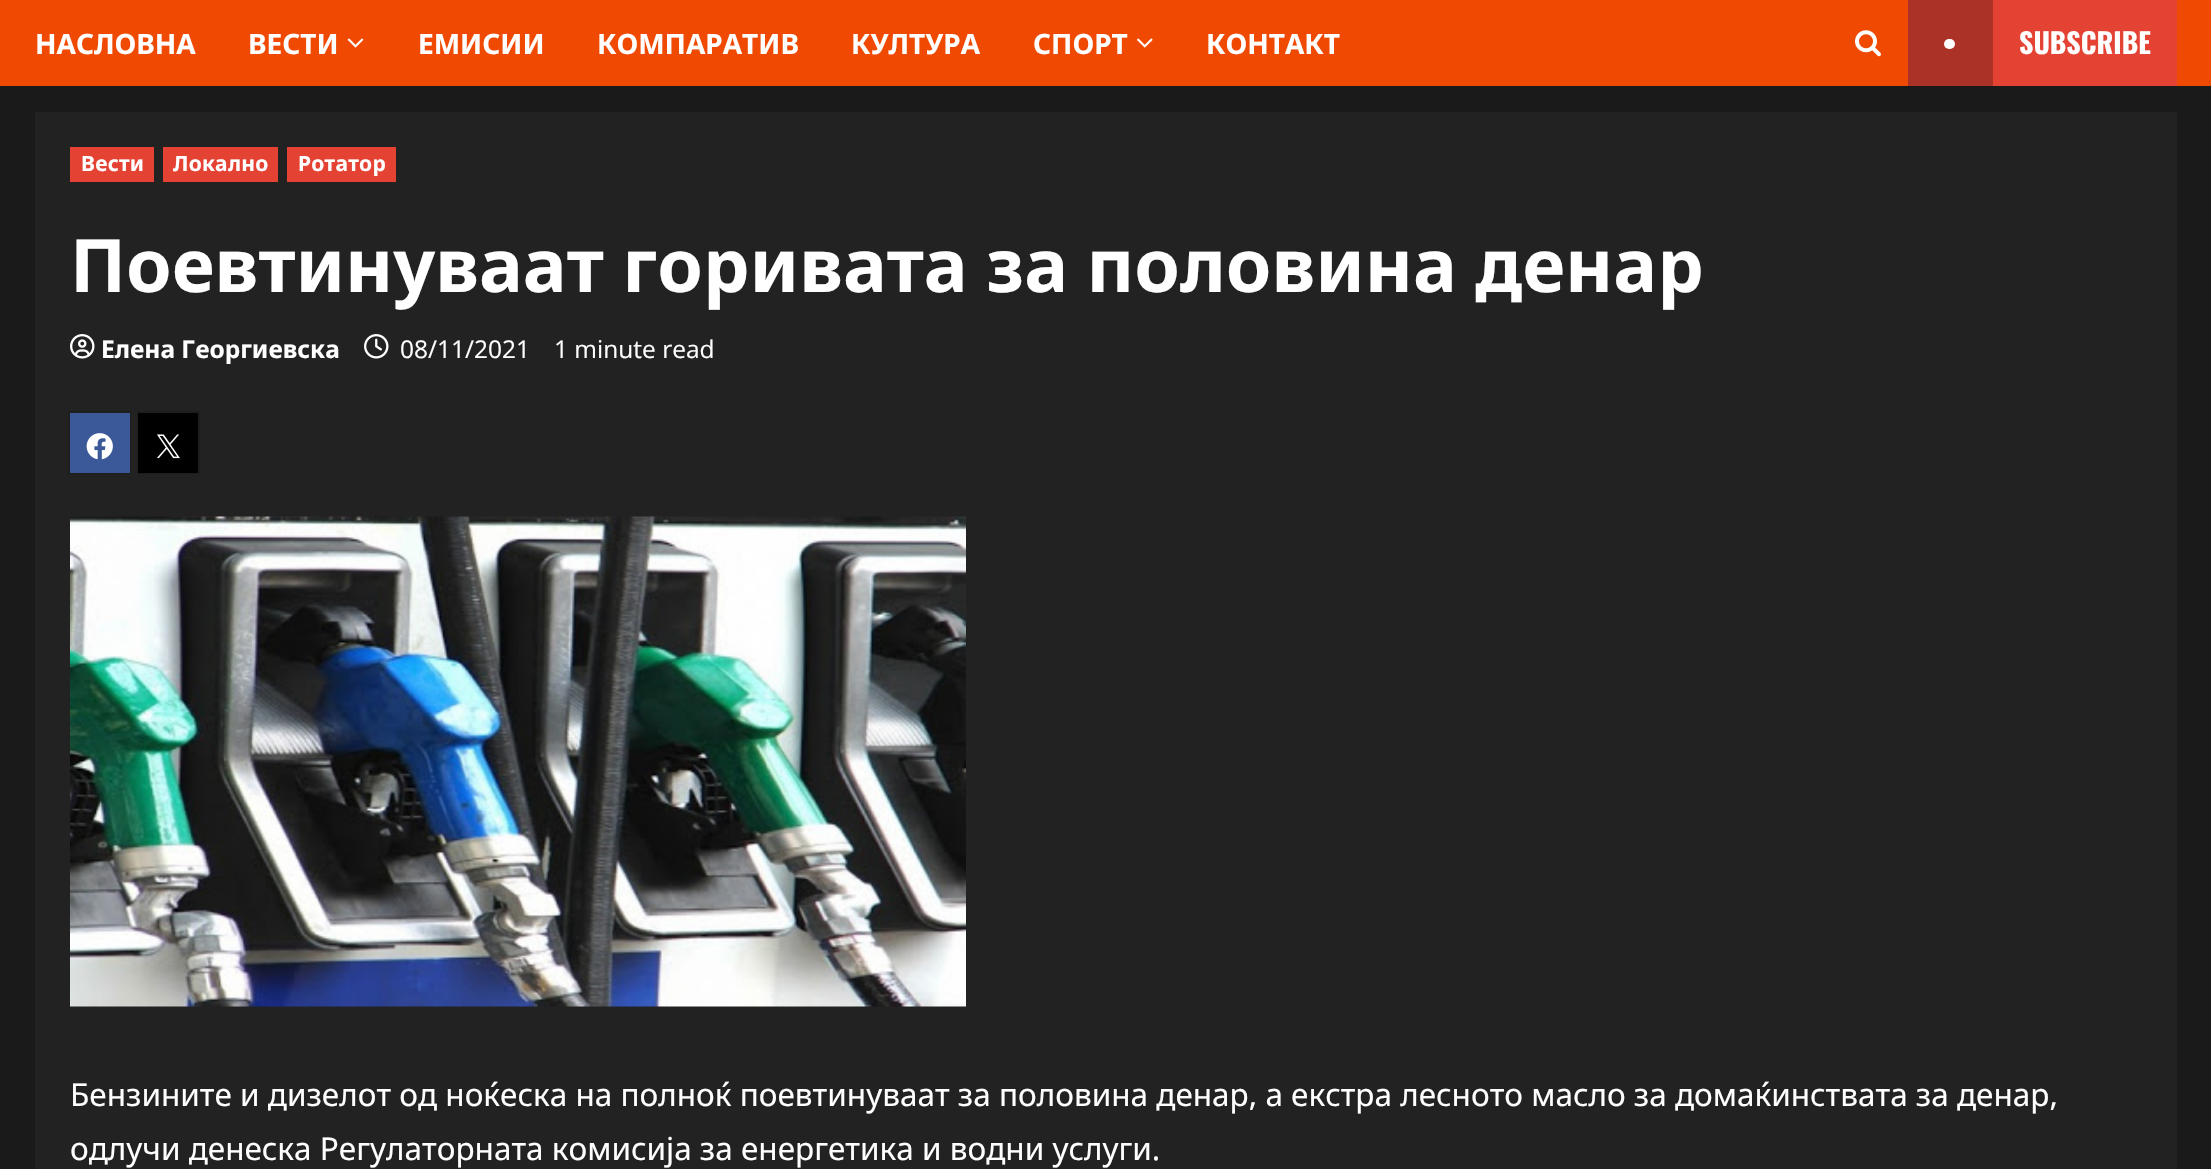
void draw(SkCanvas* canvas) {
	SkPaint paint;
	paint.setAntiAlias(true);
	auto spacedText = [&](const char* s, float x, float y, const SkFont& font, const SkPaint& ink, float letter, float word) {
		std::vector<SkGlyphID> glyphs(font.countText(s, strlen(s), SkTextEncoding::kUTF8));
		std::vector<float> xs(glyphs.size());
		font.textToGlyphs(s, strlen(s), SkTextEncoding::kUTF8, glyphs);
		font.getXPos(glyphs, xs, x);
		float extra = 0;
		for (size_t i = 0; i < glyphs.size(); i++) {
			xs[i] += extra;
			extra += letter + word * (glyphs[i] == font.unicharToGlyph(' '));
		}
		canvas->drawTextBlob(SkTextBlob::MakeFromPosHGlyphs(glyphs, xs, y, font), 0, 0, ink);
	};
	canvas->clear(0xff1a1a1a);
	paint.setColor(0xfff04901);
	canvas->drawRect(SkRect::MakeXYWH(0, 0, 2211, 86), paint);
	SkFont f1(fontMgr->matchFamilyStyle("Noto Sans", SkFontStyle::Bold()), 28);
	f1.setSubpixel(true);
	paint.setColor(0xffffffff);
	canvas->drawString("НАСЛОВНА", 35, 54, f1, paint);
	canvas->drawString("ВЕСТИ", 248, 54, f1, paint);
	canvas->drawImageRect(SkImages::DeferredFromEncodedData(SkData::MakeFromFileName("img1.png")), SkRect::MakeXYWH(347, 38, 17, 10), SkSamplingOptions());
	canvas->drawString("ЕМИСИИ", 418, 54, f1, paint);
	canvas->drawString("КОМПАРАТИВ", 597, 54, f1, paint);
	canvas->drawString("КУЛТУРА", 851, 54, f1, paint);
	canvas->drawString("СПОРТ", 1033, 54, f1, paint);
	canvas->drawImageRect(SkImages::DeferredFromEncodedData(SkData::MakeFromFileName("img2.png")), SkRect::MakeXYWH(1137, 38, 16, 10), SkSamplingOptions());
	canvas->drawString("КОНТАКТ", 1206, 54, f1, paint);
	canvas->drawImageRect(SkImages::DeferredFromEncodedData(SkData::MakeFromFileName("img3.png")), SkRect::MakeXYWH(1855, 30, 26, 27), SkSamplingOptions());
	paint.setColor(0xffe44233);
	canvas->drawRect(SkRect::MakeXYWH(1993, 0, 184, 86), paint);
	paint.setColor(0xffab3226);
	canvas->drawRect(SkRect::MakeXYWH(1908, 0, 85, 86), paint);
	paint.setColor(0xffffffff);
	canvas->drawRoundRect(SkRect::MakeXYWH(1944, 39, 11, 10), 5, 5, paint);
	SkFont f2(fontMgr->matchFamilyStyle("Oswald", SkFontStyle::Bold()), 28);
	f2.setSubpixel(true);
	canvas->drawString("SUBSCRIBE", 2019, 54, f2, paint);
	paint.setColor(0xff222222);
	canvas->drawRect(SkRect::MakeXYWH(35, 112, 2142, 1057), paint);
	paint.setColor(0xffe44233);
	canvas->drawRect(SkRect::MakeXYWH(70, 147, 84, 35), paint);
	SkFont f3(fontMgr->matchFamilyStyle("Noto Sans", SkFontStyle::Bold()), 21);
	f3.setSubpixel(true);
	paint.setColor(0xffffffff);
	spacedText("Вести", 81, 171, f3, paint, 0.25, 0);
	paint.setColor(0xffe44233);
	canvas->drawRect(SkRect::MakeXYWH(163, 147, 115, 35), paint);
	paint.setColor(0xffffffff);
	spacedText("Локално", 173, 171, f3, paint, 0.25, 0);
	paint.setColor(0xffe44233);
	canvas->drawRect(SkRect::MakeXYWH(287, 147, 109, 35), paint);
	paint.setColor(0xffffffff);
	spacedText("Ротатор", 298, 171, f3, paint, 0.25, 0);
	SkFont f4(fontMgr->matchFamilyStyle("Noto Sans", SkFontStyle::Bold()), 73.5);
	f4.setSubpixel(true);
	spacedText("Поевтинуваат горивата за половина денар", 70, 292, f4, paint, 0, -0.5);
	canvas->drawImageRect(SkImages::DeferredFromEncodedData(SkData::MakeFromFileName("img4.png")), SkRect::MakeXYWH(70, 334, 25, 25), SkSamplingOptions());
	SkFont f5(fontMgr->matchFamilyStyle("Noto Sans", SkFontStyle::Bold()), 24.5);
	f5.setSubpixel(true);
	canvas->drawString("Елена Георгиевска", 101, 358, f5, paint);
	canvas->drawImageRect(SkImages::DeferredFromEncodedData(SkData::MakeFromFileName("img5.png")), SkRect::MakeXYWH(364, 334, 25, 25), SkSamplingOptions());
	SkFont f6(fontMgr->matchFamilyStyle("Open Sans", SkFontStyle::Normal()), 24.5);
	f6.setSubpixel(true);
	canvas->drawString("08/11/2021", 400, 358, f6, paint);
	canvas->drawString("1 minute read", 554, 358, f6, paint);
	paint.setStroke(true);
	paint.setStrokeWidth(2);
	paint.setColor(0xff1e1e1e);
	canvas->drawRect(SkRect::MakeXYWH(69, 412, 61, 61), paint);
	paint.setStroke(false);
	paint.setColor(0xff3b5998);
	canvas->drawRect(SkRect::MakeXYWH(70, 413, 60, 60), paint);
	canvas->drawImageRect(SkImages::DeferredFromEncodedData(SkData::MakeFromFileName("img6.png")), SkRect::MakeXYWH(86, 433, 27, 27), SkSamplingOptions());
	paint.setStroke(true);
	paint.setColor(0xff1e1e1e);
	canvas->drawRect(SkRect::MakeXYWH(138, 412, 61, 61), paint);
	paint.setStroke(false);
	paint.setColor(0xff000000);
	canvas->drawRect(SkRect::MakeXYWH(138, 413, 60, 60), paint);
	canvas->drawImageRect(SkImages::DeferredFromEncodedData(SkData::MakeFromFileName("img7.png")), SkRect::MakeXYWH(157, 434, 23, 25), SkSamplingOptions());
	canvas->drawImageRect(SkImages::DeferredFromEncodedData(SkData::MakeFromFileName("img8.png")), SkRect::MakeXYWH(70, 516, 896, 491), SkSamplingOptions());
	SkFont f7(fontMgr->matchFamilyStyle("Noto Sans", SkFontStyle::Normal()), 31.5);
	f7.setSubpixel(true);
	paint.setColor(0xffffffff);
	canvas->drawString("Бензините и дизелот од ноќеска на полноќ поевтинуваат за половина денар, а екстра лесното масло за домаќинствата за денар,", 70, 1106, f7, paint);
	canvas->drawString("одлучи денеска Регулаторната комисија за енергетика и водни услуги.", 70, 1160, f7, paint);
}
